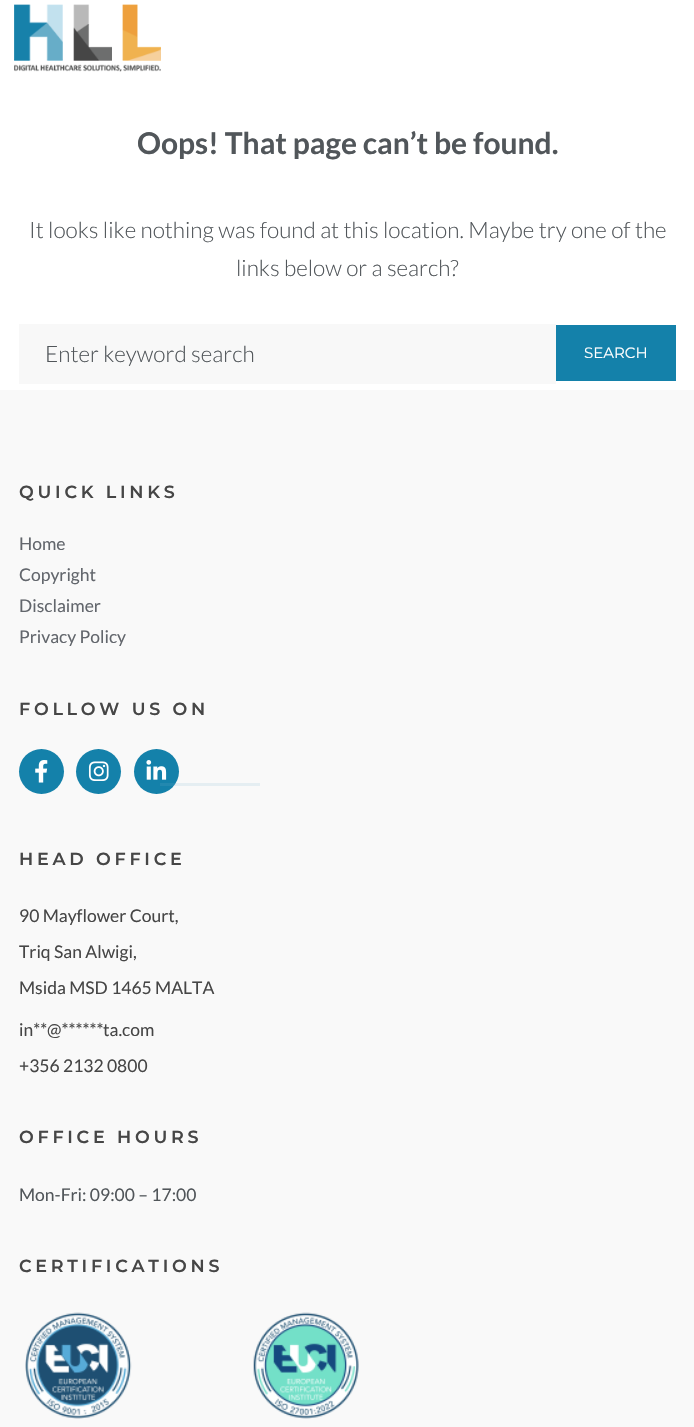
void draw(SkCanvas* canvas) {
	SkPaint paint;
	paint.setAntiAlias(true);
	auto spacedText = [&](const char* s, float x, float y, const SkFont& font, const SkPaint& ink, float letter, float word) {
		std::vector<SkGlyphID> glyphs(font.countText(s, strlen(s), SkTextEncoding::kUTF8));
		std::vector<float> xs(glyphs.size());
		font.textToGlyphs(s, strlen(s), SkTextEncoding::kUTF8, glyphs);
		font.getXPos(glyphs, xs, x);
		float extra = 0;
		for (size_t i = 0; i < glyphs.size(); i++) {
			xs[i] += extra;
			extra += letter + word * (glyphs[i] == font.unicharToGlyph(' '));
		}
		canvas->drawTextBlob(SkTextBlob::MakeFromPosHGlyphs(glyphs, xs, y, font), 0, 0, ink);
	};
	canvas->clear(0xffffffff);
	canvas->drawImageRect(SkImages::DeferredFromEncodedData(SkData::MakeFromFileName("img1.png")), SkRect::MakeXYWH(14, 4, 147, 68), SkSamplingOptions());
	SkFont f1(fontMgr->matchFamilyStyle("Lato", SkFontStyle::Bold()), 30);
	f1.setSubpixel(true);
	paint.setColor(0xff51565a);
	canvas->drawString("Oops! That page can’t be found.", 137, 154, f1, paint);
	SkFont f2(fontMgr->matchFamilyStyle("Lato", SkFontStyle(300, SkFontStyle::kNormal_Width, SkFontStyle::kUpright_Slant)), 22.5);
	f2.setSubpixel(true);
	canvas->drawString("It looks like nothing was found at this location. Maybe try one of the", 29, 238, f2, paint);
	canvas->drawString("links below or a search?", 236, 276, f2, paint);
	paint.setColor(0xfff8f8f8);
	canvas->drawRect(SkRect::MakeXYWH(19, 324, 537, 60), paint);
	paint.setColor(0xff51565a);
	canvas->drawString("Enter keyword search", 45, 362, f2, paint);
	paint.setColor(0xff1481aa);
	canvas->drawRect(SkRect::MakeXYWH(556, 325, 120, 56), paint);
	SkFont f3(fontMgr->matchFamilyStyle("Montserrat", SkFontStyle(100, SkFontStyle::kNormal_Width, SkFontStyle::kUpright_Slant)), 15);
	f3.setSubpixel(true);
	paint.setColor(0xffffffff);
	canvas->drawString("SEARCH", 584, 358, f3, paint);
	paint.setColor(0xfff9f9f9);
	canvas->drawRect(SkRect::MakeXYWH(0, 390, 694, 1037), paint);
	SkFont f4(fontMgr->matchFamilyStyle("Montserrat", SkFontStyle(600, SkFontStyle::kNormal_Width, SkFontStyle::kUpright_Slant)), 17.5);
	f4.setSubpixel(true);
	paint.setColor(0xff464646);
	spacedText("QUICK LINKS", 19, 498, f4, paint, 3.75, 0);
	SkFont f5(fontMgr->matchFamilyStyle("Lato", SkFontStyle::Normal()), 17.5);
	f5.setSubpixel(true);
	paint.setColor(0xff62666c);
	canvas->drawString("Home", 19, 550, f5, paint);
	canvas->drawString("Copyright", 19, 581, f5, paint);
	canvas->drawString("Disclaimer", 19, 612, f5, paint);
	canvas->drawString("Privacy Policy", 19, 643, f5, paint);
	paint.setColor(0xff464646);
	spacedText("FOLLOW US ON", 19, 715, f4, paint, 3.75, 0);
	paint.setColor(0xff1481aa);
	canvas->drawCircle(41.5, 771.5, 22.5, paint);
	canvas->drawImageRect(SkImages::DeferredFromEncodedData(SkData::MakeFromFileName("img2.png")), SkRect::MakeXYWH(35, 760, 13, 23), SkSamplingOptions());
	canvas->drawCircle(98.5, 771.5, 22.5, paint);
	canvas->drawImageRect(SkImages::DeferredFromEncodedData(SkData::MakeFromFileName("img3.png")), SkRect::MakeXYWH(88, 761, 21, 20), SkSamplingOptions());
	canvas->drawCircle(156.5, 771.5, 22.5, paint);
	canvas->drawImageRect(SkImages::DeferredFromEncodedData(SkData::MakeFromFileName("img4.png")), SkRect::MakeXYWH(146, 760, 21, 20), SkSamplingOptions());
	paint.setColor(0xff464646);
	spacedText("HEAD OFFICE", 19, 865, f4, paint, 3.75, 0);
	canvas->drawString("90 Mayflower Court,", 19, 922, f5, paint);
	canvas->drawString("Triq San Alwigi,", 19, 958, f5, paint);
	canvas->drawString("Msida MSD 1465 MALTA", 19, 994, f5, paint);
	canvas->drawString("in**", 19, 1036, f5, paint);
	canvas->drawString("@******", 47, 1036, f5, paint);
	canvas->drawString("ta.com", 103, 1036, f5, paint);
	canvas->drawString("+356 2132 0800", 19, 1072, f5, paint);
	spacedText("OFFICE HOURS", 19, 1143, f4, paint, 3.75, 0);
	paint.setColor(0xff51565a);
	canvas->drawString("Mon-Fri: 09:00 – 17:00", 19, 1201, f5, paint);
	paint.setColor(0xff464646);
	spacedText("CERTIFICATIONS", 19, 1272, f4, paint, 3.75, 0);
	canvas->drawImageRect(SkImages::DeferredFromEncodedData(SkData::MakeFromFileName("img5.png")), SkRect::MakeXYWH(25, 1312, 107, 107), SkSamplingOptions());
	canvas->drawImageRect(SkImages::DeferredFromEncodedData(SkData::MakeFromFileName("img6.png")), SkRect::MakeXYWH(253, 1312, 106, 107), SkSamplingOptions());
	paint.setColor(0x14f7f7f7);
	canvas->drawRect(SkRect::MakeXYWH(160, 783, 16, 3), paint);
	paint.setColor(0x140076a3);
	canvas->drawRect(SkRect::MakeXYWH(160, 783, 100, 3), paint);
}
